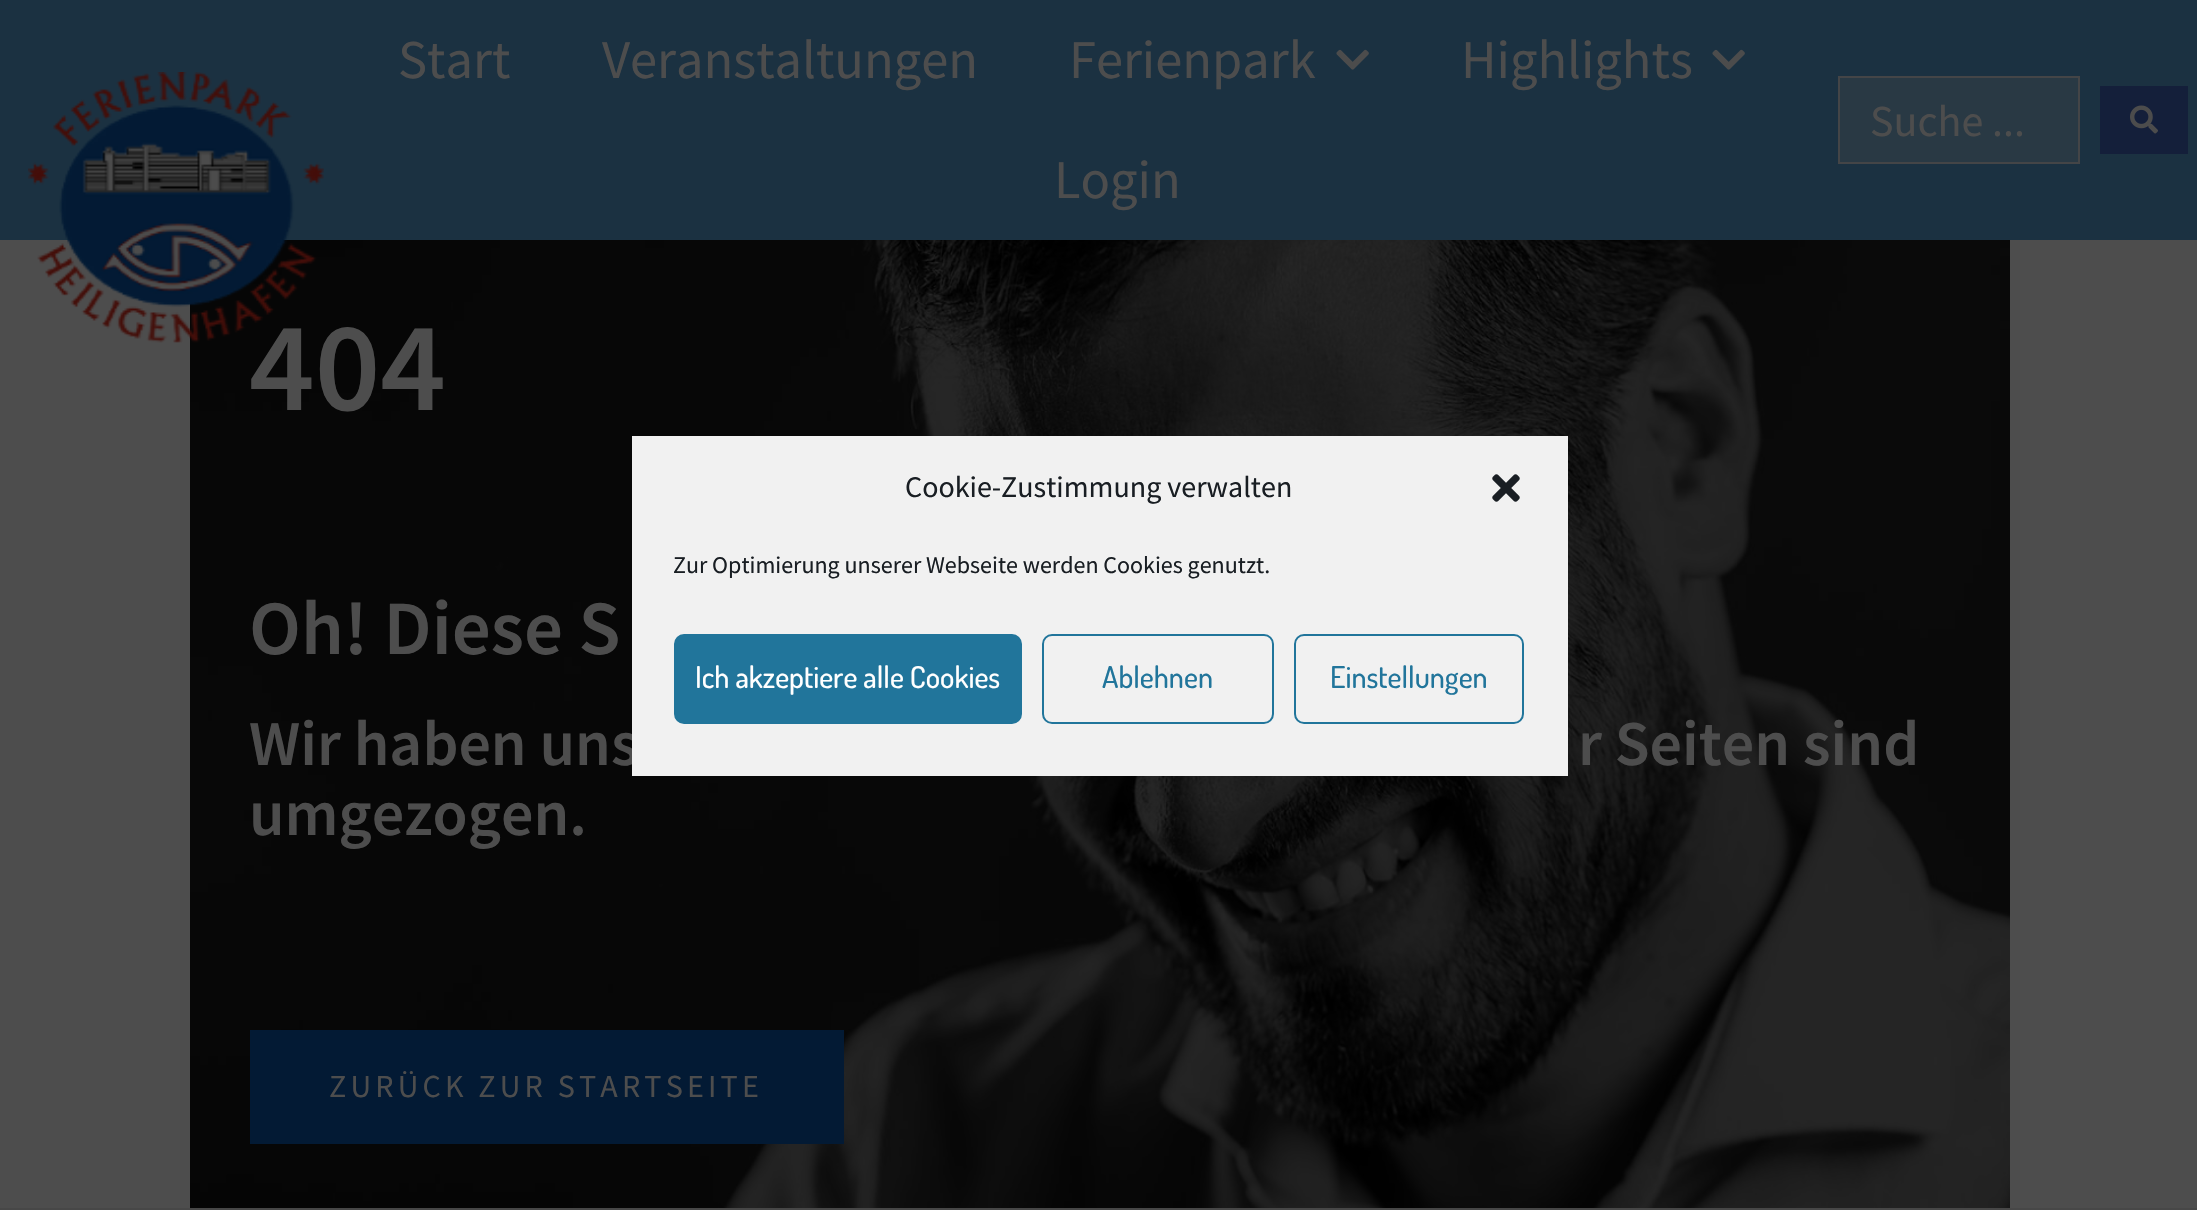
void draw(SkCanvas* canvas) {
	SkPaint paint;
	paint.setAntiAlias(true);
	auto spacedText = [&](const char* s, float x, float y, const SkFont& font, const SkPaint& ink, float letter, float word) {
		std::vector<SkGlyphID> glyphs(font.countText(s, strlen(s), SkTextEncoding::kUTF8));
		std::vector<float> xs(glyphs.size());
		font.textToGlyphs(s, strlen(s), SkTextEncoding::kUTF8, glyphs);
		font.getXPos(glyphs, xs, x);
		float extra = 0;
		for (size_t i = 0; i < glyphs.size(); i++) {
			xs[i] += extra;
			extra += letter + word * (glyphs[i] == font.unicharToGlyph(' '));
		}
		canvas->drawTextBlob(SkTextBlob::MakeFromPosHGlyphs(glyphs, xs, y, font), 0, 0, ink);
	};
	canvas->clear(0xff4d4d4d);
	paint.setColor(0xff1b3141);
	canvas->drawRect(SkRect::MakeXYWH(0, 0, 2197, 240), paint);
	canvas->drawImageRect(SkImages::DeferredFromEncodedData(SkData::MakeFromFileName("img4.png")), SkRect::MakeXYWH(190, 240, 1820, 968), SkSamplingOptions());
	SkFont f1(fontMgr->matchFamilyStyle("Source Sans Pro", SkFontStyle(600, SkFontStyle::kNormal_Width, SkFontStyle::kUpright_Slant)), 128);
	f1.setSubpixel(true);
	paint.setColor(0xff4d4d4d);
	canvas->drawString("404", 249, 410, f1, paint);
	canvas->drawImageRect(SkImages::DeferredFromEncodedData(SkData::MakeFromFileName("img1.png")), SkRect::MakeXYWH(28, 72, 296, 271), SkSamplingOptions());
	SkFont f2(fontMgr->matchFamilyStyle("Source Sans Pro", SkFontStyle::Normal()), 54.5);
	f2.setSubpixel(true);
	canvas->drawString("Start", 398, 78, f2, paint);
	canvas->drawString("Veranstaltungen", 602, 78, f2, paint);
	canvas->drawString("Ferienpark", 1069, 78, f2, paint);
	canvas->drawImageRect(SkImages::DeferredFromEncodedData(SkData::MakeFromFileName("img2.png")), SkRect::MakeXYWH(1336, 49, 33, 21), SkSamplingOptions());
	canvas->drawString("Highlights", 1461, 78, f2, paint);
	canvas->drawImageRect(SkImages::DeferredFromEncodedData(SkData::MakeFromFileName("img2.png")), SkRect::MakeXYWH(1712, 49, 33, 21), SkSamplingOptions());
	canvas->drawString("Login", 1054, 198, f2, paint);
	paint.setColor(0xff293944);
	canvas->drawRect(SkRect::MakeXYWH(1839, 77, 240, 86), paint);
	paint.setStroke(true);
	paint.setStrokeWidth(2);
	paint.setColor(0xff444547);
	canvas->drawRect(SkRect::MakeXYWH(1839, 77, 240, 86), paint);
	SkFont f3(fontMgr->matchFamilyStyle("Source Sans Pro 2", SkFontStyle::Normal()), 44);
	f3.setSubpixel(true);
	paint.setStroke(false);
	paint.setColor(0xff4d4d4d);
	canvas->drawString("Suche ...", 1870, 136, f3, paint);
	paint.setColor(0xff141f3a);
	canvas->drawRect(SkRect::MakeXYWH(2100, 86, 88, 68), paint);
	canvas->drawImageRect(SkImages::DeferredFromEncodedData(SkData::MakeFromFileName("img3.png")), SkRect::MakeXYWH(2130, 105, 28, 29), SkSamplingOptions());
	SkFont f4(fontMgr->matchFamilyStyle("Source Sans Pro", SkFontStyle(600, SkFontStyle::kNormal_Width, SkFontStyle::kUpright_Slant)), 77);
	f4.setSubpixel(true);
	paint.setColor(0xff4d4d4d);
	canvas->drawString("Oh! Diese S", 249, 654, f4, paint);
	SkFont f5(fontMgr->matchFamilyStyle("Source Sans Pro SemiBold", SkFontStyle(600, SkFontStyle::kNormal_Width, SkFontStyle::kUpright_Slant)), 64);
	f5.setSubpixel(true);
	canvas->drawString("Wir haben uns", 249, 765, f5, paint);
	canvas->drawString("r Seiten sind", 1578, 765, f5, paint);
	canvas->drawString("umgezogen.", 249, 835, f5, paint);
	paint.setColor(0xff031a34);
	canvas->drawRect(SkRect::MakeXYWH(250, 1030, 594, 114), paint);
	SkFont f6(fontMgr->matchFamilyStyle("Source Sans Pro", SkFontStyle::Normal()), 32);
	f6.setSubpixel(true);
	paint.setColor(0xff4d4d4d);
	spacedText("ZURÜCK ZUR STARTSEITE", 329, 1097, f6, paint, 4.2, 0);
	{
		const SkColor colors[] = {0xff474747, 0xff454545};
		const float stops[] = {0, 1};
		const SkPoint ends[] = {{1099, 1208}, {1099, 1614}};
		paint.setShader(SkGradientShader::MakeLinear(ends, colors, stops, 2, SkTileMode::kClamp));
		paint.setAlpha(255);
	}
	canvas->drawRect(SkRect::MakeXYWH(0, 1208, 2197, 2), paint);
	paint.setShader(nullptr);
	paint.setColor(0xfff1f1f1);
	canvas->drawRect(SkRect::MakeXYWH(632, 436, 936, 340), paint);
	SkFont f7(fontMgr->matchFamilyStyle("Source Sans Pro", SkFontStyle::Normal()), 30);
	f7.setSubpixel(true);
	paint.setColor(0xff191e23);
	canvas->drawString("Cookie-Zustimmung verwalten", 905, 497, f7, paint);
	canvas->drawImageRect(SkImages::DeferredFromEncodedData(SkData::MakeFromFileName("img5.png")), SkRect::MakeXYWH(1492, 474, 28, 28), SkSamplingOptions());
	SkFont f8(fontMgr->matchFamilyStyle("Source Sans Pro", SkFontStyle::Normal()), 24);
	f8.setSubpixel(true);
	canvas->drawString("Zur Optimierung unserer Webseite werden Cookies genutzt.", 673, 573, f8, paint);
	paint.setColor(0xff21759b);
	canvas->drawRoundRect(SkRect::MakeXYWH(675, 635, 346, 88), 9, 9, paint);
	paint.setStroke(true);
	canvas->drawRoundRect(SkRect::MakeXYWH(675, 635, 346, 88), 9, 9, paint);
	SkFont f9(fontMgr->matchFamilyStyle("Dosis", SkFontStyle(500, SkFontStyle::kNormal_Width, SkFontStyle::kUpright_Slant)), 30);
	f9.setSubpixel(true);
	paint.setStroke(false);
	paint.setColor(0xffffffff);
	canvas->drawString("Ich akzeptiere alle Cookies", 695, 688, f9, paint);
	paint.setStroke(true);
	paint.setColor(0xff21759b);
	canvas->drawRoundRect(SkRect::MakeXYWH(1043, 635, 230, 88), 9, 9, paint);
	paint.setStroke(false);
	canvas->drawString("Ablehnen", 1102, 688, f9, paint);
	paint.setStroke(true);
	canvas->drawRoundRect(SkRect::MakeXYWH(1295, 635, 228, 88), 9, 9, paint);
	paint.setStroke(false);
	canvas->drawString("Einstellungen", 1330, 688, f9, paint);
}
